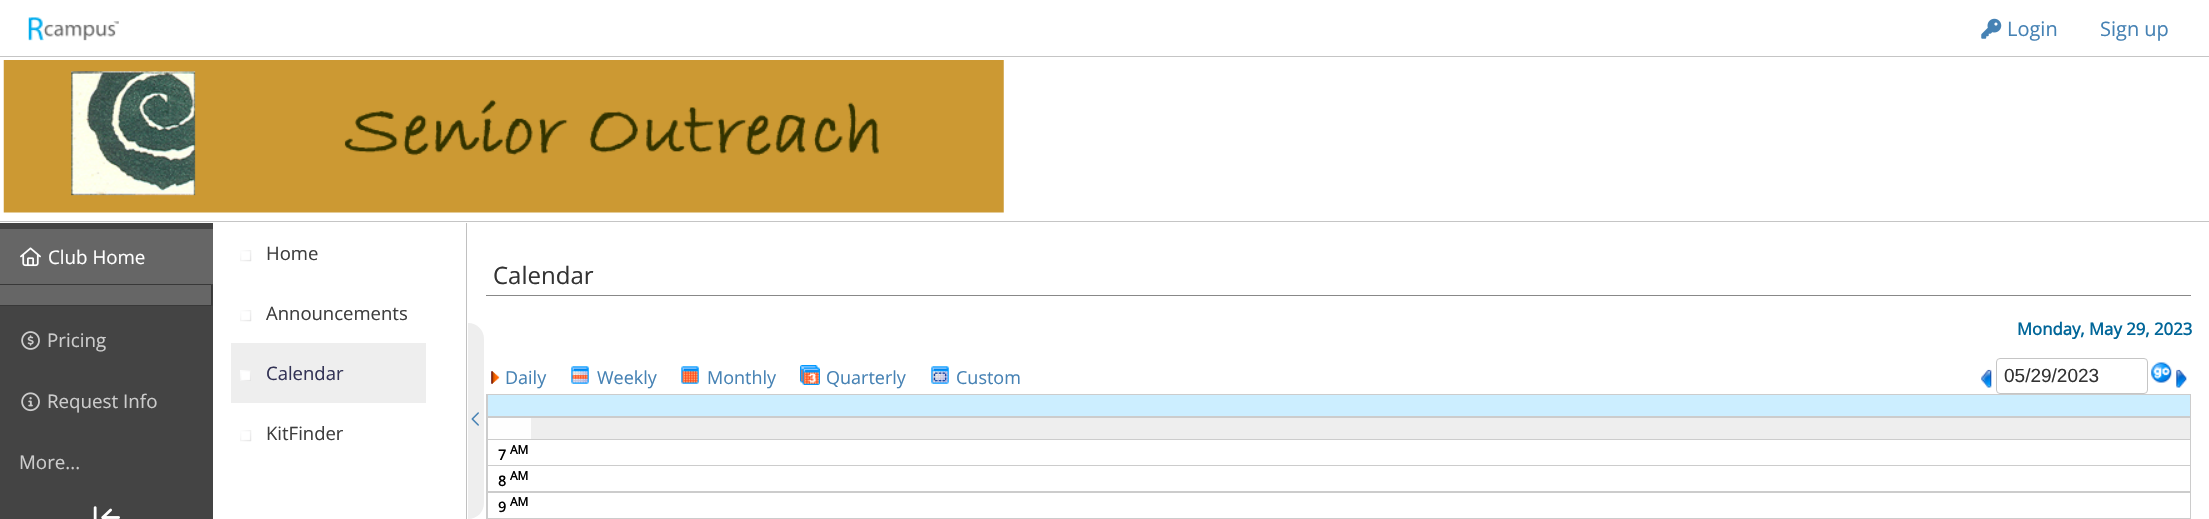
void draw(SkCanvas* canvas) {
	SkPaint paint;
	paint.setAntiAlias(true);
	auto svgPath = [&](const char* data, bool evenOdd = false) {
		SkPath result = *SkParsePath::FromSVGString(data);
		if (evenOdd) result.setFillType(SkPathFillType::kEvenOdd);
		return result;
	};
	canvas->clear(0xffffffff);
	paint.setColor(0xffc5c5c5);
	canvas->drawRect(SkRect::MakeXYWH(0, 56, 2209, 1), paint);
	canvas->drawImageRect(SkImages::DeferredFromEncodedData(SkData::MakeFromFileName("img1.png")), SkRect::MakeXYWH(28, 17, 91, 24), SkSamplingOptions());
	canvas->drawImageRect(SkImages::DeferredFromEncodedData(SkData::MakeFromFileName("img2.png")), SkRect::MakeXYWH(1981, 18, 21, 21), SkSamplingOptions());
	SkFont f1(fontMgr->matchFamilyStyle("Open Sans", SkFontStyle::Normal()), 20);
	f1.setSubpixel(true);
	paint.setColor(0xff4682b4);
	canvas->drawString("Login", 2007, 36, f1, paint);
	canvas->drawString("Sign up", 2100, 36, f1, paint);
	paint.setColor(0xffc5c5c5);
	canvas->drawRect(SkRect::MakeXYWH(0, 221, 2209, 1), paint);
	canvas->drawImageRect(SkImages::DeferredFromEncodedData(SkData::MakeFromFileName("img3.png")), SkRect::MakeXYWH(3, 60, 1001, 153), SkSamplingOptions());
	paint.setColor(0xff444444);
	canvas->drawRect(SkRect::MakeXYWH(0, 223, 213, 296), paint);
	paint.setColor(0xff666666);
	canvas->drawRect(SkRect::MakeXYWH(0, 229, 213, 55), paint);
	canvas->drawImageRect(SkImages::DeferredFromEncodedData(SkData::MakeFromFileName("img4.png")), SkRect::MakeXYWH(20, 247, 21, 20), SkSamplingOptions());
	SkFont f2(fontMgr->matchFamilyStyle("Open Sans", SkFontStyle::Normal()), 18.75);
	f2.setSubpixel(true);
	paint.setColor(0xffffffff);
	canvas->drawString("Club Home", 48, 264, f2, paint);
	paint.setColor(0xff666666);
	canvas->drawRect(SkRect::MakeXYWH(0, 285, 211, 20), paint);
	paint.setColor(0xff383838);
	canvas->drawPath(svgPath("M0 284H212L211 285H0Z"), paint);
	canvas->drawPath(svgPath("M212.5 284V306L211 305V285Z"), paint);
	paint.setColor(0x2e000000);
	canvas->drawPath(svgPath("M212 306H0V305H211Z"), paint);
	canvas->drawImageRect(SkImages::DeferredFromEncodedData(SkData::MakeFromFileName("img5.png")), SkRect::MakeXYWH(21, 331, 19, 19), SkSamplingOptions());
	paint.setColor(0xffcccccc);
	canvas->drawString("Pricing", 47, 347, f2, paint);
	canvas->drawImageRect(SkImages::DeferredFromEncodedData(SkData::MakeFromFileName("img6.png")), SkRect::MakeXYWH(21, 392, 19, 20), SkSamplingOptions());
	canvas->drawString("Request Info", 47, 408, f2, paint);
	canvas->drawString("More...", 19, 469, f2, paint);
	canvas->drawImageRect(SkImages::DeferredFromEncodedData(SkData::MakeFromFileName("img7.png")), SkRect::MakeXYWH(93, 506, 27, 13), SkSamplingOptions());
	canvas->drawImageRect(SkImages::DeferredFromEncodedData(SkData::MakeFromFileName("img8.png")), SkRect::MakeXYWH(240, 250, 12, 12), SkSamplingOptions());
	SkFont f3(fontMgr->matchFamilyStyle("Open Sans", SkFontStyle::Normal()), 18.5);
	f3.setSubpixel(true);
	paint.setColor(0xff3e3e3e);
	canvas->drawString("Home", 266, 260, f3, paint);
	canvas->drawImageRect(SkImages::DeferredFromEncodedData(SkData::MakeFromFileName("img8.png")), SkRect::MakeXYWH(240, 310, 12, 12), SkSamplingOptions());
	canvas->drawString("Announcements", 266, 320, f3, paint);
	paint.setColor(0xffeeeeee);
	canvas->drawRect(SkRect::MakeXYWH(231, 343, 195, 60), paint);
	canvas->drawImageRect(SkImages::DeferredFromEncodedData(SkData::MakeFromFileName("img9.png")), SkRect::MakeXYWH(240, 370, 11, 11), SkSamplingOptions());
	paint.setColor(0xff333355);
	canvas->drawString("Calendar", 266, 380, f3, paint);
	canvas->drawImageRect(SkImages::DeferredFromEncodedData(SkData::MakeFromFileName("img8.png")), SkRect::MakeXYWH(240, 430, 12, 12), SkSamplingOptions());
	paint.setColor(0xff3e3e3e);
	canvas->drawString("KitFinder", 266, 440, f3, paint);
	paint.setColor(0xffeeeeee);
	canvas->drawPath(svgPath("M468 323C477 323 484 330 484 339V503C484 512 477 519 468 519Z"), paint);
	canvas->drawImageRect(SkImages::DeferredFromEncodedData(SkData::MakeFromFileName("img10.png")), SkRect::MakeXYWH(471, 412, 8, 14), SkSamplingOptions());
	paint.setColor(0xffc0c0c0);
	canvas->drawRect(SkRect::MakeXYWH(466, 223, 1, 296), paint);
	paint.setColor(0xff888888);
	canvas->drawRect(SkRect::MakeXYWH(486, 295, 1705, 1), paint);
	SkFont f4(fontMgr->matchFamilyStyle("Open Sans", SkFontStyle::Normal()), 24);
	f4.setSubpixel(true);
	paint.setColor(0xff333333);
	canvas->drawString("Calendar", 493, 284, f4, paint);
	canvas->drawImageRect(SkImages::DeferredFromEncodedData(SkData::MakeFromFileName("img11.png")), SkRect::MakeXYWH(491, 371, 9, 13), SkSamplingOptions());
	SkFont f5(fontMgr->matchFamilyStyle("Open Sans", SkFontStyle::Normal()), 18);
	f5.setSubpixel(true);
	paint.setColor(0xff4682b4);
	canvas->drawString("Daily", 505, 384, f5, paint);
	canvas->drawImageRect(SkImages::DeferredFromEncodedData(SkData::MakeFromFileName("img12.png")), SkRect::MakeXYWH(571, 366, 18, 18), SkSamplingOptions());
	canvas->drawString("Weekly", 597, 384, f5, paint);
	canvas->drawImageRect(SkImages::DeferredFromEncodedData(SkData::MakeFromFileName("img13.png")), SkRect::MakeXYWH(681, 366, 18, 18), SkSamplingOptions());
	canvas->drawString("Monthly", 707, 384, f5, paint);
	canvas->drawImageRect(SkImages::DeferredFromEncodedData(SkData::MakeFromFileName("img14.png")), SkRect::MakeXYWH(800, 365, 20, 20), SkSamplingOptions());
	canvas->drawString("Quarterly", 826, 384, f5, paint);
	canvas->drawImageRect(SkImages::DeferredFromEncodedData(SkData::MakeFromFileName("img15.png")), SkRect::MakeXYWH(931, 366, 18, 18), SkSamplingOptions());
	canvas->drawString("Custom", 956, 384, f5, paint);
	SkFont f6(fontMgr->matchFamilyStyle("Open Sans", SkFontStyle::Bold()), 16.75);
	f6.setSubpixel(true);
	paint.setColor(0xff006699);
	canvas->drawString("Monday, May 29, 2023", 2017, 335, f6, paint);
	canvas->drawImageRect(SkImages::DeferredFromEncodedData(SkData::MakeFromFileName("img16.png")), SkRect::MakeXYWH(1981, 369, 11, 19), SkSamplingOptions());
	paint.setStroke(true);
	paint.setStrokeWidth(1);
	paint.setColor(0xffc5c5c5);
	canvas->drawRoundRect(SkRect::MakeXYWH(1996.5, 358.5, 151, 35), 3.5, 3.5, paint);
	SkFont f7(fontMgr->matchFamilyStyle("Liberation Sans", SkFontStyle::Normal()), 19);
	f7.setSubpixel(true);
	paint.setStroke(false);
	paint.setColor(0xff333333);
	canvas->drawString("05/29/2023", 2004, 382, f7, paint);
	canvas->drawImageRect(SkImages::DeferredFromEncodedData(SkData::MakeFromFileName("img17.png")), SkRect::MakeXYWH(2151, 362, 21, 21), SkSamplingOptions());
	canvas->drawImageRect(SkImages::DeferredFromEncodedData(SkData::MakeFromFileName("img18.png")), SkRect::MakeXYWH(2176, 369, 11, 19), SkSamplingOptions());
	paint.setColor(0xffcccccc);
	canvas->drawRect(SkRect::MakeXYWH(486, 394, 1705, 125), paint);
	paint.setColor(0xffcceeff);
	canvas->drawRect(SkRect::MakeXYWH(488, 395, 1702, 21), paint);
	paint.setColor(0xffeeeeee);
	canvas->drawRect(SkRect::MakeXYWH(531, 418, 1659, 21), paint);
	paint.setColor(0xfffefefe);
	canvas->drawRect(SkRect::MakeXYWH(488, 418, 43, 21), paint);
	paint.setColor(0xffffffff);
	canvas->drawRect(SkRect::MakeXYWH(488, 440, 1702, 25), paint);
	SkFont f8(fontMgr->matchFamilyStyle("Open Sans", SkFontStyle::Bold()), 14);
	f8.setSubpixel(true);
	paint.setColor(0xff000000);
	canvas->drawString("7", 498, 460, f8, paint);
	SkFont f9(fontMgr->matchFamilyStyle("Open Sans", SkFontStyle::Bold()), 12);
	f9.setSubpixel(true);
	canvas->drawString("AM", 510, 454, f9, paint);
	paint.setColor(0xffffffff);
	canvas->drawRect(SkRect::MakeXYWH(488, 466, 1702, 25), paint);
	paint.setColor(0xff000000);
	canvas->drawString("8", 498, 486, f8, paint);
	canvas->drawString("AM", 510, 480, f9, paint);
	paint.setColor(0xffffffff);
	canvas->drawRect(SkRect::MakeXYWH(488, 493, 1702, 25), paint);
	paint.setColor(0xff000000);
	canvas->drawString("9", 498, 512, f8, paint);
	canvas->drawString("AM", 510, 506, f9, paint);
}
